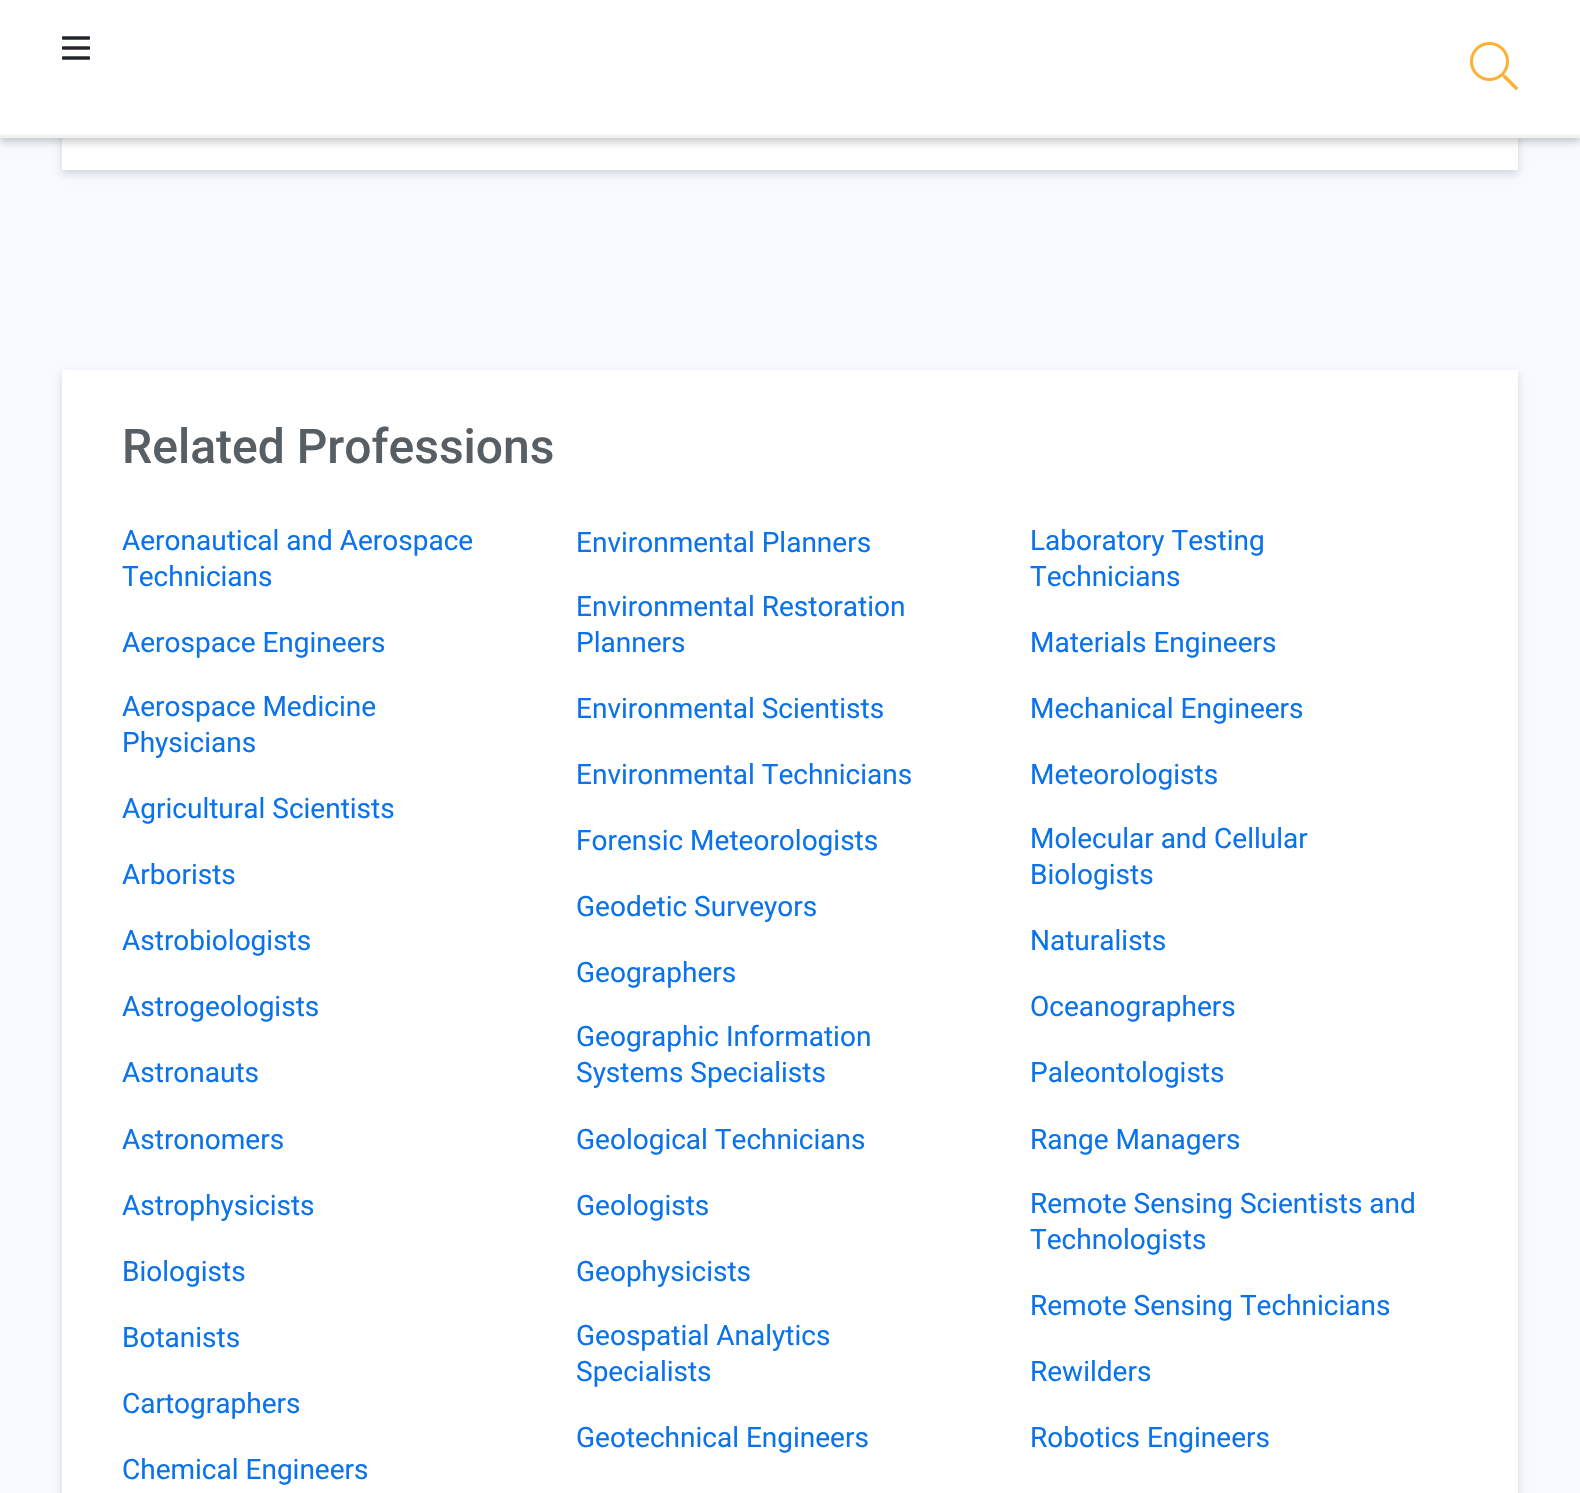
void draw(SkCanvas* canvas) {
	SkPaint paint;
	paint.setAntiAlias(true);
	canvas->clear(0xfff7fbff);
	paint.setColor(0x26000000);
	paint.setMaskFilter(SkMaskFilter::MakeBlur(kNormal_SkBlurStyle, 4));
	canvas->drawRect(SkRect::MakeXYWH(62, -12, 1456, 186), paint);
	paint.setMaskFilter(nullptr);
	paint.setColor(0xffffffff);
	canvas->drawRect(SkRect::MakeXYWH(62, 138, 1456, 32), paint);
	paint.setColor(0x36000000);
	paint.setMaskFilter(SkMaskFilter::MakeBlur(kNormal_SkBlurStyle, 4));
	canvas->drawRect(SkRect::MakeXYWH(0, 4, 1580, 138), paint);
	paint.setMaskFilter(nullptr);
	paint.setColor(0xffffffff);
	canvas->drawRect(SkRect::MakeXYWH(0, 0, 1580, 134), paint);
	paint.setColor(0xfff0f1f1);
	canvas->drawRect(SkRect::MakeXYWH(0, 136, 1580, 2), paint);
	paint.setColor(0xfff6f6f5);
	canvas->drawRect(SkRect::MakeXYWH(0, 134, 1580, 2), paint);
	canvas->drawImageRect(SkImages::DeferredFromEncodedData(SkData::MakeFromFileName("img1.png")), SkRect::MakeXYWH(62, 36, 28, 24), SkSamplingOptions());
	canvas->drawImageRect(SkImages::DeferredFromEncodedData(SkData::MakeFromFileName("img2.png")), SkRect::MakeXYWH(1470, 42, 48, 48), SkSamplingOptions());
	paint.setColor(0x26000000);
	paint.setMaskFilter(SkMaskFilter::MakeBlur(kNormal_SkBlurStyle, 4));
	canvas->drawRect(SkRect::MakeXYWH(62, 374, 1456, 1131), paint);
	paint.setMaskFilter(nullptr);
	paint.setColor(0xffffffff);
	canvas->drawRect(SkRect::MakeXYWH(62, 370, 1456, 1123), paint);
	SkFont f1(fontMgr->matchFamilyStyle("Roboto", SkFontStyle(500, SkFontStyle::kNormal_Width, SkFontStyle::kUpright_Slant)), 48);
	f1.setSubpixel(true);
	paint.setColor(0xff585f64);
	canvas->drawString("Related Professions", 122, 463, f1, paint);
	SkFont f2(fontMgr->matchFamilyStyle("Roboto", SkFontStyle::Normal()), 28);
	f2.setSubpixel(true);
	paint.setColor(0xff0a73eb);
	canvas->drawString("Aeronautical and Aerospace", 122, 550, f2, paint);
	canvas->drawString("Technicians", 122, 586, f2, paint);
	canvas->drawString("Environmental Planners", 576, 552, f2, paint);
	canvas->drawString("Laboratory Testing", 1030, 550, f2, paint);
	canvas->drawString("Technicians", 1030, 586, f2, paint);
	canvas->drawString("Aerospace Engineers", 122, 652, f2, paint);
	canvas->drawString("Environmental Restoration", 576, 616, f2, paint);
	canvas->drawString("Planners", 576, 652, f2, paint);
	canvas->drawString("Materials Engineers", 1030, 652, f2, paint);
	canvas->drawString("Aerospace Medicine", 122, 716, f2, paint);
	canvas->drawString("Physicians", 122, 752, f2, paint);
	canvas->drawString("Environmental Scientists", 576, 718, f2, paint);
	canvas->drawString("Mechanical Engineers", 1030, 718, f2, paint);
	canvas->drawString("Environmental Technicians", 576, 784, f2, paint);
	canvas->drawString("Meteorologists", 1030, 784, f2, paint);
	canvas->drawString("Agricultural Scientists", 122, 818, f2, paint);
	canvas->drawString("Forensic Meteorologists", 576, 850, f2, paint);
	canvas->drawString("Molecular and Cellular", 1030, 848, f2, paint);
	canvas->drawString("Biologists", 1030, 884, f2, paint);
	canvas->drawString("Arborists", 122, 884, f2, paint);
	canvas->drawString("Geodetic Surveyors", 576, 916, f2, paint);
	canvas->drawString("Astrobiologists", 122, 950, f2, paint);
	canvas->drawString("Naturalists", 1030, 950, f2, paint);
	canvas->drawString("Geographers", 576, 982, f2, paint);
	canvas->drawString("Astrogeologists", 122, 1016, f2, paint);
	canvas->drawString("Oceanographers", 1030, 1016, f2, paint);
	canvas->drawString("Astronauts", 122, 1082, f2, paint);
	canvas->drawString("Geographic Information", 576, 1046, f2, paint);
	canvas->drawString("Systems Specialists", 576, 1082, f2, paint);
	canvas->drawString("Paleontologists", 1030, 1082, f2, paint);
	canvas->drawString("Astronomers", 122, 1149, f2, paint);
	canvas->drawString("Geological Technicians", 576, 1149, f2, paint);
	canvas->drawString("Range Managers", 1030, 1149, f2, paint);
	canvas->drawString("Astrophysicists", 122, 1215, f2, paint);
	canvas->drawString("Geologists", 576, 1215, f2, paint);
	canvas->drawString("Remote Sensing Scientists and", 1030, 1213, f2, paint);
	canvas->drawString("Technologists", 1030, 1249, f2, paint);
	canvas->drawString("Biologists", 122, 1281, f2, paint);
	canvas->drawString("Geophysicists", 576, 1281, f2, paint);
	canvas->drawString("Remote Sensing Technicians", 1030, 1315, f2, paint);
	canvas->drawString("Botanists", 122, 1347, f2, paint);
	canvas->drawString("Geospatial Analytics", 576, 1345, f2, paint);
	canvas->drawString("Specialists", 576, 1381, f2, paint);
	canvas->drawString("Rewilders", 1030, 1381, f2, paint);
	canvas->drawString("Cartographers", 122, 1413, f2, paint);
	canvas->drawString("Geotechnical Engineers", 576, 1447, f2, paint);
	canvas->drawString("Robotics Engineers", 1030, 1447, f2, paint);
	canvas->drawString("Chemical Engineers", 122, 1479, f2, paint);
}
